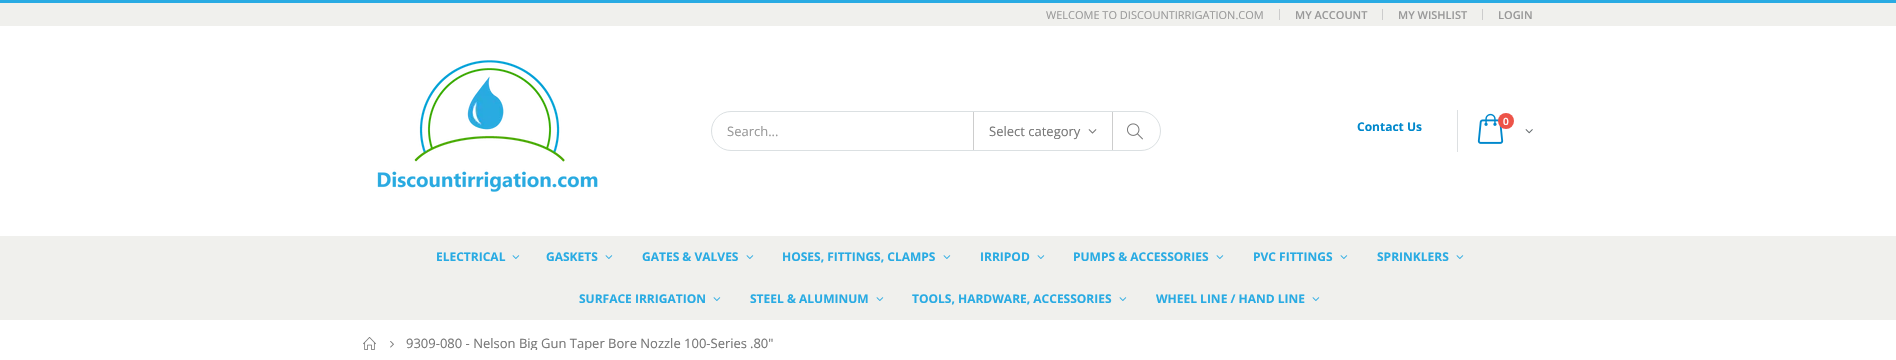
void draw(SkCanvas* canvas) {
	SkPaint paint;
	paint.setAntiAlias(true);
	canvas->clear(0xffffffff);
	paint.setColor(0xff29abe3);
	canvas->drawRect(SkRect::MakeXYWH(0, 0, 1896, 3), paint);
	paint.setColor(0xfff0f0ed);
	canvas->drawRect(SkRect::MakeXYWH(0, 3, 1896, 23), paint);
	SkFont f1(fontMgr->matchFamilyStyle("Open Sans", SkFontStyle::Normal()), 11);
	f1.setSubpixel(true);
	paint.setColor(0xff999999);
	canvas->drawString("WELCOME TO DISCOUNTIRRIGATION.COM", 1046, 19, f1, paint);
	paint.setColor(0xffcccccc);
	canvas->drawRect(SkRect::MakeXYWH(1279, 9, 1, 11), paint);
	SkFont f2(fontMgr->matchFamilyStyle("Open Sans", SkFontStyle(600, SkFontStyle::kNormal_Width, SkFontStyle::kUpright_Slant)), 11);
	f2.setSubpixel(true);
	paint.setColor(0xff999999);
	canvas->drawString("MY ACCOUNT", 1295, 19, f2, paint);
	paint.setColor(0xffcccccc);
	canvas->drawRect(SkRect::MakeXYWH(1382, 9, 1, 11), paint);
	paint.setColor(0xff999999);
	canvas->drawString("MY WISHLIST", 1398, 19, f2, paint);
	paint.setColor(0xffcccccc);
	canvas->drawRect(SkRect::MakeXYWH(1482, 9, 1, 11), paint);
	paint.setColor(0xff999999);
	canvas->drawString("LOGIN", 1498, 19, f2, paint);
	canvas->drawImageRect(SkImages::DeferredFromEncodedData(SkData::MakeFromFileName("img1.png")), SkRect::MakeXYWH(377, 60, 221, 132), SkSamplingOptions());
	paint.setStroke(true);
	paint.setStrokeWidth(1);
	paint.setColor(0xffdbe0e2);
	canvas->drawRoundRect(SkRect::MakeXYWH(711.5, 111.5, 449, 39), 19.5, 19.5, paint);
	SkFont f3(fontMgr->matchFamilyStyle("Open Sans", SkFontStyle::Normal()), 13);
	f3.setSubpixel(true);
	paint.setStroke(false);
	paint.setColor(0xff999999);
	canvas->drawString("Search...", 727, 136, f3, paint);
	paint.setColor(0xffcdcdcd);
	canvas->drawRect(SkRect::MakeXYWH(1112, 112, 1, 38), paint);
	canvas->drawRect(SkRect::MakeXYWH(973, 112, 1, 38), paint);
	paint.setColor(0xff777777);
	canvas->drawString("Select category", 989, 136, f3, paint);
	canvas->drawImageRect(SkImages::DeferredFromEncodedData(SkData::MakeFromFileName("img2.png")), SkRect::MakeXYWH(1088, 129, 9, 5), SkSamplingOptions());
	canvas->drawImageRect(SkImages::DeferredFromEncodedData(SkData::MakeFromFileName("img3.png")), SkRect::MakeXYWH(1127, 123, 16, 17), SkSamplingOptions());
	paint.setColor(0xffdde0e2);
	canvas->drawRect(SkRect::MakeXYWH(1457, 110, 1, 42), paint);
	SkFont f4(fontMgr->matchFamilyStyle("Open Sans", SkFontStyle::Bold()), 12);
	f4.setSubpixel(true);
	paint.setColor(0xff0088cc);
	canvas->drawString("Contact Us", 1357, 131, f4, paint);
	canvas->drawImageRect(SkImages::DeferredFromEncodedData(SkData::MakeFromFileName("img4.png")), SkRect::MakeXYWH(1477, 113, 27, 31), SkSamplingOptions());
	paint.setColor(0xffed5348);
	canvas->drawCircle(1506, 121, 8, paint);
	SkFont f5(fontMgr->matchFamilyStyle("Open Sans", SkFontStyle(600, SkFontStyle::kNormal_Width, SkFontStyle::kUpright_Slant)), 10);
	f5.setSubpixel(true);
	paint.setColor(0xffffffff);
	canvas->drawString("0", 1503, 125, f5, paint);
	canvas->drawImageRect(SkImages::DeferredFromEncodedData(SkData::MakeFromFileName("img5.png")), SkRect::MakeXYWH(1525, 129, 8, 5), SkSamplingOptions());
	paint.setColor(0xfff0f0ed);
	canvas->drawRect(SkRect::MakeXYWH(0, 236, 1896, 84), paint);
	paint.setColor(0xff29abe3);
	canvas->drawString("ELECTRICAL", 436, 261, f4, paint);
	canvas->drawImageRect(SkImages::DeferredFromEncodedData(SkData::MakeFromFileName("img6.png")), SkRect::MakeXYWH(512, 255, 8, 4), SkSamplingOptions());
	canvas->drawString("GASKETS", 546, 261, f4, paint);
	canvas->drawImageRect(SkImages::DeferredFromEncodedData(SkData::MakeFromFileName("img6.png")), SkRect::MakeXYWH(605, 255, 8, 4), SkSamplingOptions());
	canvas->drawString("GATES & VALVES", 642, 261, f4, paint);
	canvas->drawImageRect(SkImages::DeferredFromEncodedData(SkData::MakeFromFileName("img6.png")), SkRect::MakeXYWH(746, 255, 8, 4), SkSamplingOptions());
	canvas->drawString("HOSES, FITTINGS, CLAMPS", 782, 261, f4, paint);
	canvas->drawImageRect(SkImages::DeferredFromEncodedData(SkData::MakeFromFileName("img6.png")), SkRect::MakeXYWH(943, 255, 8, 4), SkSamplingOptions());
	canvas->drawString("IRRIPOD", 980, 261, f4, paint);
	canvas->drawImageRect(SkImages::DeferredFromEncodedData(SkData::MakeFromFileName("img6.png")), SkRect::MakeXYWH(1037, 255, 8, 4), SkSamplingOptions());
	canvas->drawString("PUMPS & ACCESSORIES", 1073, 261, f4, paint);
	canvas->drawImageRect(SkImages::DeferredFromEncodedData(SkData::MakeFromFileName("img6.png")), SkRect::MakeXYWH(1216, 255, 8, 4), SkSamplingOptions());
	canvas->drawString("PVC FITTINGS", 1253, 261, f4, paint);
	canvas->drawImageRect(SkImages::DeferredFromEncodedData(SkData::MakeFromFileName("img6.png")), SkRect::MakeXYWH(1340, 255, 8, 4), SkSamplingOptions());
	canvas->drawString("SPRINKLERS", 1377, 261, f4, paint);
	canvas->drawImageRect(SkImages::DeferredFromEncodedData(SkData::MakeFromFileName("img6.png")), SkRect::MakeXYWH(1456, 255, 8, 4), SkSamplingOptions());
	canvas->drawString("SURFACE IRRIGATION", 579, 303, f4, paint);
	canvas->drawImageRect(SkImages::DeferredFromEncodedData(SkData::MakeFromFileName("img6.png")), SkRect::MakeXYWH(713, 297, 8, 4), SkSamplingOptions());
	canvas->drawString("STEEL & ALUMINUM", 750, 303, f4, paint);
	canvas->drawImageRect(SkImages::DeferredFromEncodedData(SkData::MakeFromFileName("img6.png")), SkRect::MakeXYWH(876, 297, 8, 4), SkSamplingOptions());
	canvas->drawString("TOOLS, HARDWARE, ACCESSORIES", 912, 303, f4, paint);
	canvas->drawImageRect(SkImages::DeferredFromEncodedData(SkData::MakeFromFileName("img6.png")), SkRect::MakeXYWH(1119, 297, 8, 4), SkSamplingOptions());
	canvas->drawString("WHEEL LINE / HAND LINE", 1156, 303, f4, paint);
	canvas->drawImageRect(SkImages::DeferredFromEncodedData(SkData::MakeFromFileName("img6.png")), SkRect::MakeXYWH(1312, 297, 8, 4), SkSamplingOptions());
	canvas->drawImageRect(SkImages::DeferredFromEncodedData(SkData::MakeFromFileName("img7.png")), SkRect::MakeXYWH(363, 337, 13, 13), SkSamplingOptions());
	canvas->drawImageRect(SkImages::DeferredFromEncodedData(SkData::MakeFromFileName("img8.png")), SkRect::MakeXYWH(390, 341, 4, 7), SkSamplingOptions());
	canvas->save();
	canvas->clipRect(SkRect::MakeXYWH(363, 336, 1170, 14));
	paint.setColor(0xff777777);
	canvas->drawString("9309-080 - Nelson Big Gun Taper Bore Nozzle 100-Series", 406, 348, f3, paint);
	canvas->restore();
	canvas->drawString(".80\"", 750, 348, f3, paint);
}
